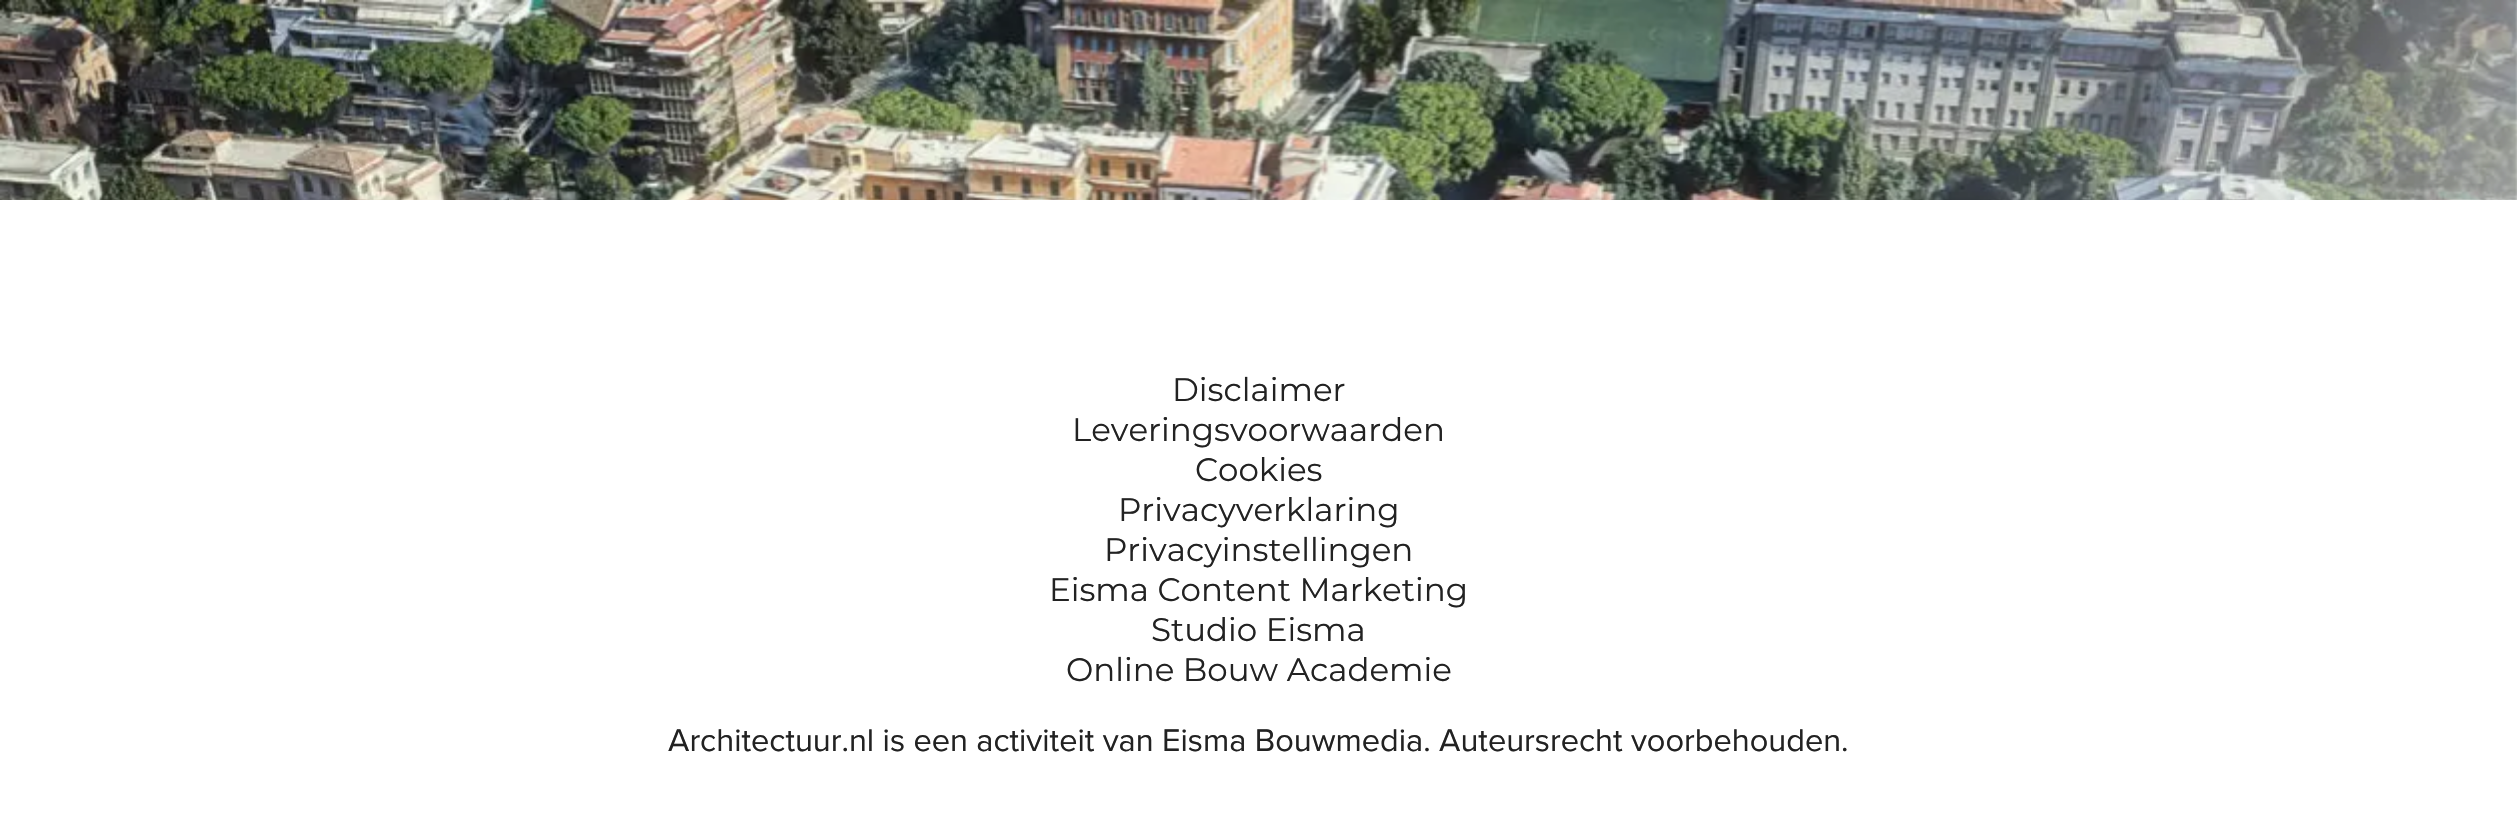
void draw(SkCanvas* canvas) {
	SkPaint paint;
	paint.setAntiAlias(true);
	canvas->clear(0xffffffff);
	canvas->drawImageRect(SkImages::DeferredFromEncodedData(SkData::MakeFromFileName("img1.png")), SkRect::MakeXYWH(0, 0, 2517, 200), SkSamplingOptions());
	SkFont f1(fontMgr->matchFamilyStyle("Montserrat", SkFontStyle::Normal()), 32.5);
	f1.setSubpixel(true);
	paint.setColor(0xff222222);
	canvas->drawString("Disclaimer", 1172, 401, f1, paint);
	canvas->drawString("Leveringsvoorwaarden", 1072, 441, f1, paint);
	canvas->drawString("Cookies", 1195, 481, f1, paint);
	canvas->drawString("Privacyverklaring", 1118, 521, f1, paint);
	canvas->drawString("Privacyinstellingen", 1104, 561, f1, paint);
	canvas->drawString("Eisma Content Marketing", 1049, 601, f1, paint);
	canvas->drawString("Studio Eisma", 1151, 641, f1, paint);
	canvas->drawString("Online Bouw Academie", 1066, 681, f1, paint);
	SkFont f2(fontMgr->matchFamilyStyle("Proxima Nova", SkFontStyle::Normal()), 32.5);
	f2.setSubpixel(true);
	canvas->drawString("Architectuur.nl is een activiteit van Eisma Bouwmedia. Auteursrecht voorbehouden.", 668, 751, f2, paint);
}
